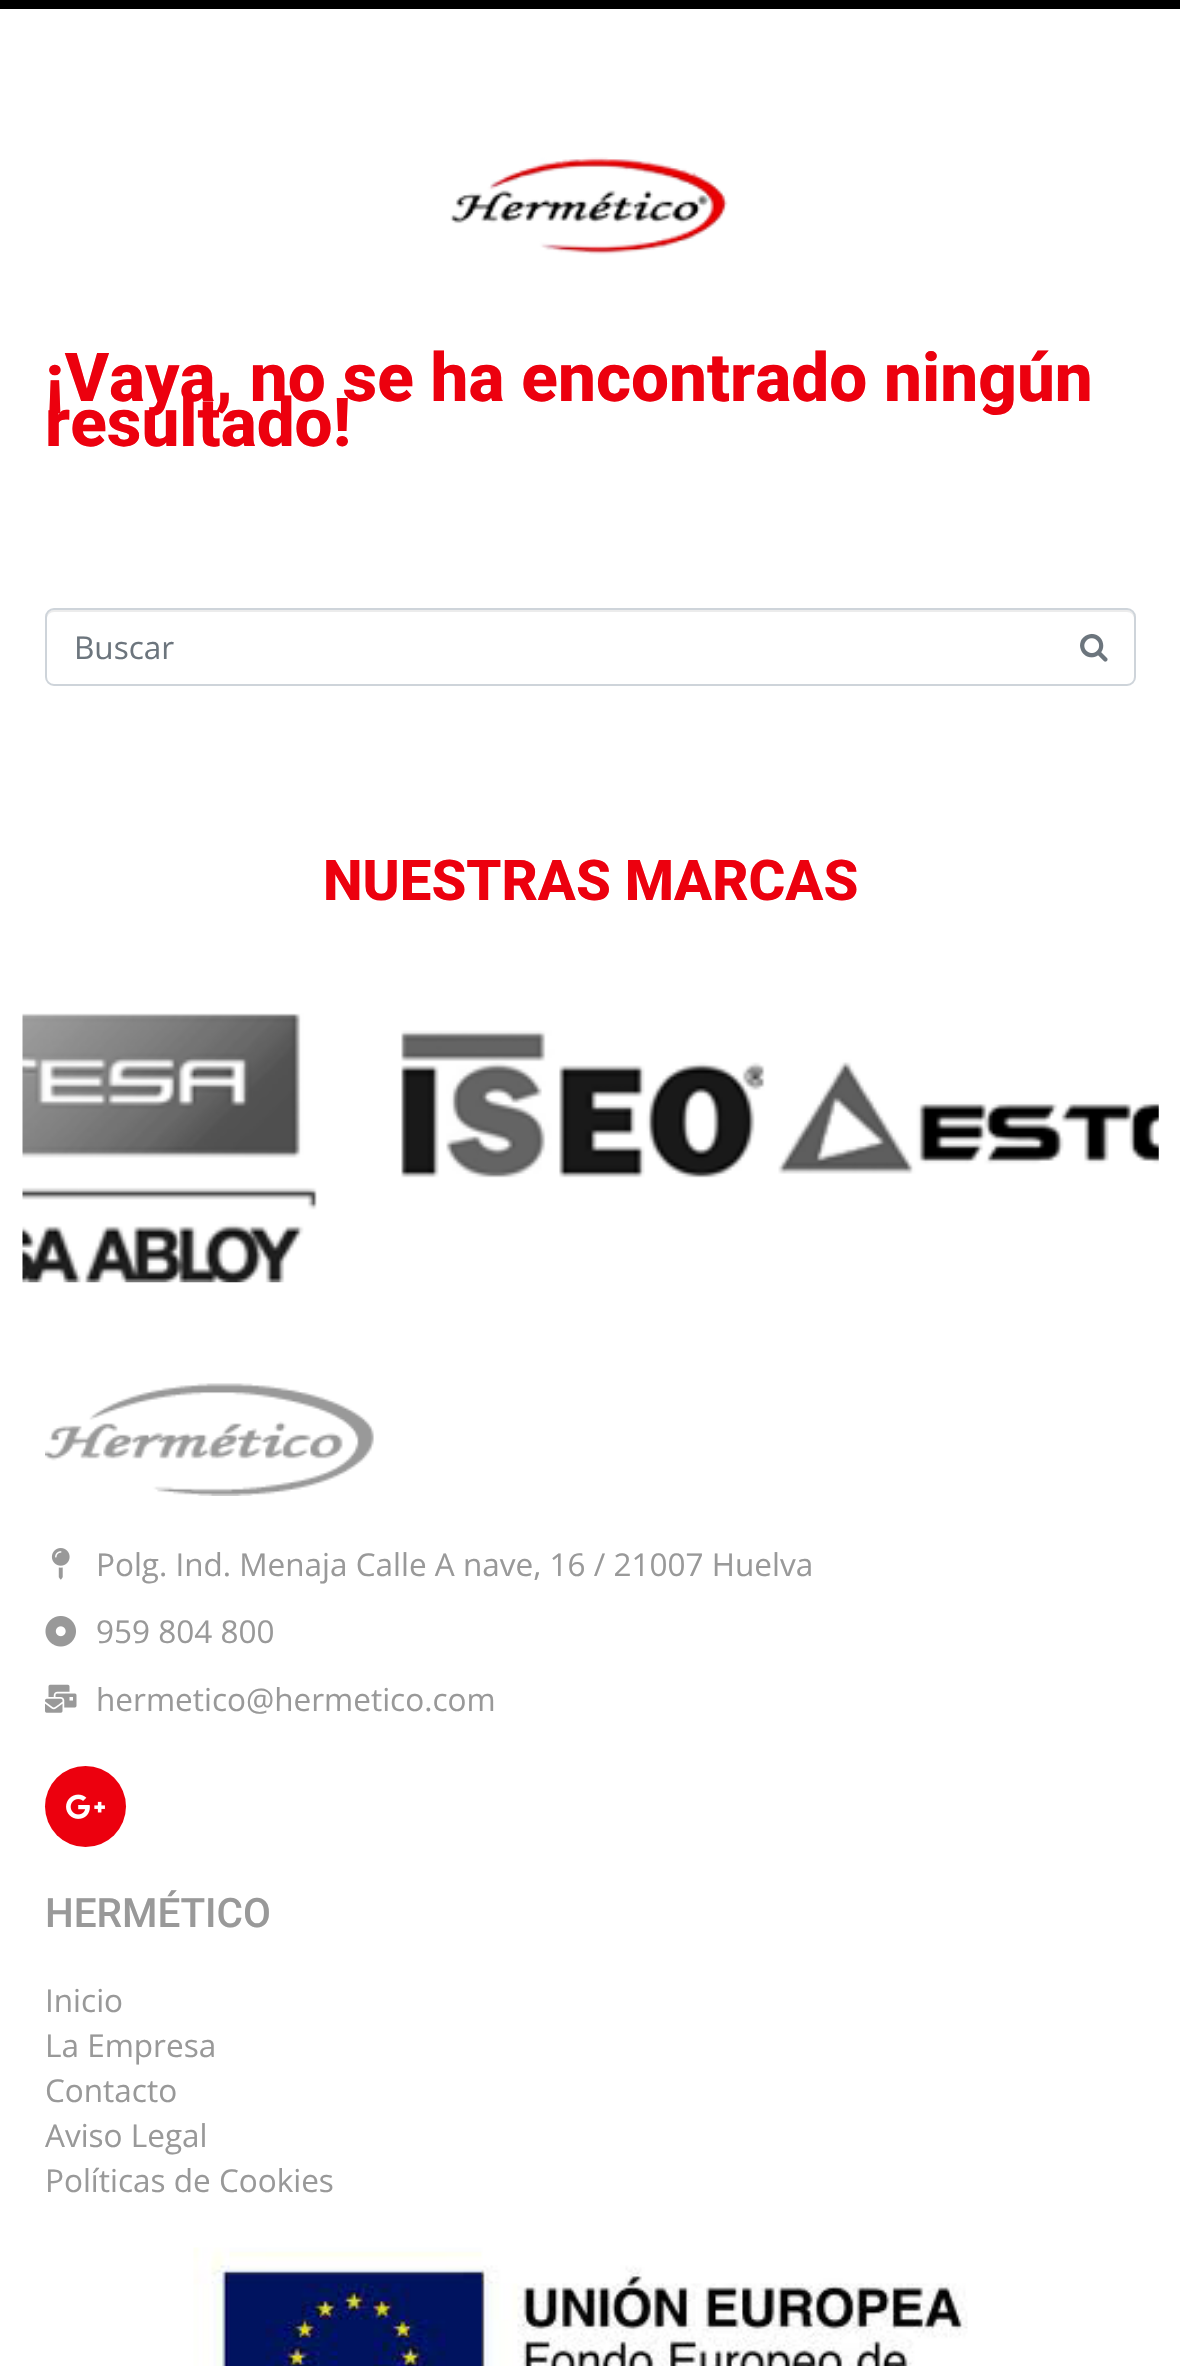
void draw(SkCanvas* canvas) {
	SkPaint paint;
	paint.setAntiAlias(true);
	auto svgPath = [&](const char* data, bool evenOdd = false) {
		SkPath result = *SkParsePath::FromSVGString(data);
		if (evenOdd) result.setFillType(SkPathFillType::kEvenOdd);
		return result;
	};
	canvas->clear(0xffffffff);
	paint.setColor(0xff000000);
	canvas->drawRect(SkRect::MakeXYWH(0, 0, 1180, 9), paint);
	canvas->drawImageRect(SkImages::DeferredFromEncodedData(SkData::MakeFromFileName("img1.png")), SkRect::MakeXYWH(450, 157, 278, 98), SkSamplingOptions());
	SkFont f1(fontMgr->matchFamilyStyle("Roboto", SkFontStyle(800, SkFontStyle::kNormal_Width, SkFontStyle::kUpright_Slant)), 67.5);
	f1.setSubpixel(true);
	paint.setColor(0xffec000e);
	canvas->drawString("¡Vaya, no se ha encontrado ningún", 45, 401, f1, paint);
	canvas->drawString("resultado!", 45, 446, f1, paint);
	paint.setColor(0xffececec);
	canvas->drawPath(svgPath("M54 612H1127C1131 612 1134 615 1134 619V617C1134 613 1131 610 1127 610H54C50 610 47 613 47 617V619C47 615 50 612 54 612Z"), paint);
	paint.setStroke(true);
	paint.setStrokeWidth(2);
	paint.setColor(0xffced4da);
	canvas->drawRoundRect(SkRect::MakeXYWH(46, 609, 1089, 76), 8, 8, paint);
	SkFont f2(fontMgr->matchFamilyStyle("Open Sans", SkFontStyle::Normal()), 31.5);
	f2.setSubpixel(true);
	paint.setStroke(false);
	paint.setColor(0xff6c757d);
	canvas->drawString("Buscar", 74, 659, f2, paint);
	canvas->drawImageRect(SkImages::DeferredFromEncodedData(SkData::MakeFromFileName("img2.png")), SkRect::MakeXYWH(1080, 633, 28, 29), SkSamplingOptions());
	SkFont f3(fontMgr->matchFamilyStyle("Roboto", SkFontStyle(800, SkFontStyle::kNormal_Width, SkFontStyle::kUpright_Slant)), 56.25);
	f3.setSubpixel(true);
	paint.setColor(0xffec000e);
	canvas->drawString("NUESTRAS MARCAS", 323, 900, f3, paint);
	canvas->drawImageRect(SkImages::DeferredFromEncodedData(SkData::MakeFromFileName("img3.png")), SkRect::MakeXYWH(22, 1013, 1137, 270), SkSamplingOptions());
	canvas->drawImageRect(SkImages::DeferredFromEncodedData(SkData::MakeFromFileName("img4.png")), SkRect::MakeXYWH(45, 1383, 329, 113), SkSamplingOptions());
	canvas->drawImageRect(SkImages::DeferredFromEncodedData(SkData::MakeFromFileName("img5.png")), SkRect::MakeXYWH(51, 1548, 19, 32), SkSamplingOptions());
	paint.setColor(0xff999999);
	canvas->drawString("Polg. Ind. Menaja Calle A nave, 16 / 21007 Huelva", 96, 1576, f2, paint);
	canvas->drawImageRect(SkImages::DeferredFromEncodedData(SkData::MakeFromFileName("img6.png")), SkRect::MakeXYWH(45, 1616, 31, 31), SkSamplingOptions());
	canvas->drawString("959 804 800", 96, 1643, f2, paint);
	canvas->drawImageRect(SkImages::DeferredFromEncodedData(SkData::MakeFromFileName("img7.png")), SkRect::MakeXYWH(45, 1684, 32, 29), SkSamplingOptions());
	canvas->drawString("hermetico@hermetico.com", 96, 1711, f2, paint);
	paint.setColor(0xffec000e);
	canvas->drawCircle(85.5, 1806.5, 40.5, paint);
	canvas->drawImageRect(SkImages::DeferredFromEncodedData(SkData::MakeFromFileName("img8.png")), SkRect::MakeXYWH(66, 1794, 39, 25), SkSamplingOptions());
	SkFont f4(fontMgr->matchFamilyStyle("Roboto", SkFontStyle(500, SkFontStyle::kNormal_Width, SkFontStyle::kUpright_Slant)), 40.5);
	f4.setSubpixel(true);
	paint.setColor(0xff999999);
	canvas->drawString("HERMÉTICO", 45, 1927, f4, paint);
	canvas->drawString("Inicio", 45, 2012, f2, paint);
	canvas->drawString("La Empresa", 45, 2057, f2, paint);
	canvas->drawString("Contacto", 45, 2102, f2, paint);
	canvas->drawString("Aviso Legal", 45, 2147, f2, paint);
	canvas->drawString("Políticas de Cookies", 45, 2192, f2, paint);
	canvas->drawImageRect(SkImages::DeferredFromEncodedData(SkData::MakeFromFileName("img9.png")), SkRect::MakeXYWH(193, 2247, 775, 119), SkSamplingOptions());
}
